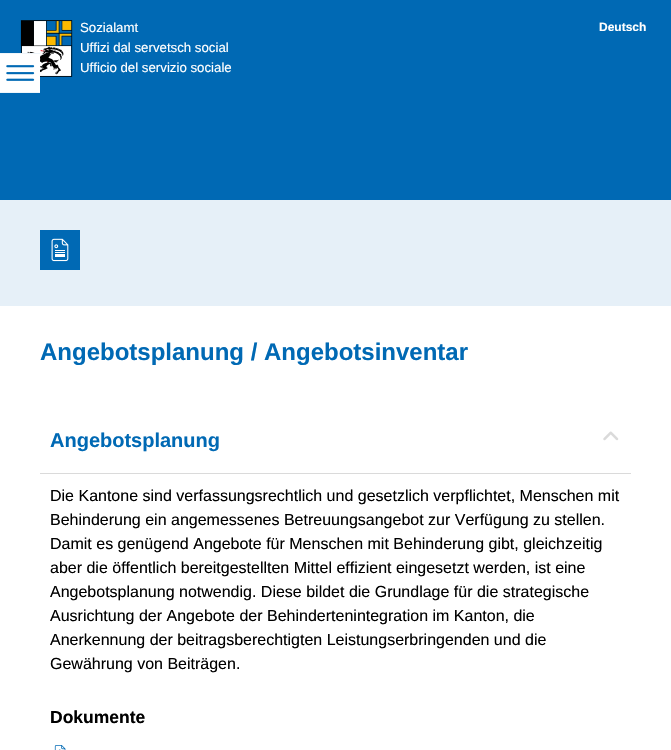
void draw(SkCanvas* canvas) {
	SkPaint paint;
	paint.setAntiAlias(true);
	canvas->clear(0xffffffff);
	paint.setColor(0xff0069b4);
	canvas->drawRect(SkRect::MakeXYWH(0, 0, 671, 200), paint);
	canvas->drawImageRect(SkImages::DeferredFromEncodedData(SkData::MakeFromFileName("img1.png")), SkRect::MakeXYWH(20, 20, 53, 57), SkSamplingOptions());
	SkFont f1(fontMgr->matchFamilyStyle("Liberation Sans", SkFontStyle::Normal()), 13.25);
	f1.setSubpixel(true);
	paint.setColor(0xffffffff);
	canvas->drawString("Sozialamt", 80, 32, f1, paint);
	canvas->drawString("Uffizi dal servetsch social", 80, 52, f1, paint);
	canvas->drawString("Ufficio del servizio sociale", 80, 72, f1, paint);
	SkFont f2(fontMgr->matchFamilyStyle("Liberation Sans", SkFontStyle::Bold()), 12);
	f2.setSubpixel(true);
	canvas->drawString("Deutsch", 599, 31, f2, paint);
	paint.setColor(0xff0069b4);
	canvas->drawRect(SkRect::MakeXYWH(20, 53, 20, 24), paint);
	canvas->drawImageRect(SkImages::DeferredFromEncodedData(SkData::MakeFromFileName("img2.png")), SkRect::MakeXYWH(0, 53, 40, 40), SkSamplingOptions());
	paint.setColor(0xffe6f0f8);
	canvas->drawRect(SkRect::MakeXYWH(0, 200, 671, 106), paint);
	paint.setColor(0xff0069b4);
	canvas->drawRect(SkRect::MakeXYWH(40, 230, 40, 40), paint);
	canvas->drawImageRect(SkImages::DeferredFromEncodedData(SkData::MakeFromFileName("img3.png")), SkRect::MakeXYWH(51, 238, 18, 24), SkSamplingOptions());
	SkFont f3(fontMgr->matchFamilyStyle("Liberation Sans", SkFontStyle::Bold()), 24);
	f3.setSubpixel(true);
	canvas->drawString("Angebotsplanung / Angebotsinventar", 40, 360, f3, paint);
	paint.setColor(0xffdadada);
	canvas->drawRect(SkRect::MakeXYWH(40, 473, 591, 1), paint);
	SkFont f4(fontMgr->matchFamilyStyle("Liberation Sans", SkFontStyle::Bold()), 20);
	f4.setSubpixel(true);
	paint.setColor(0xff0069b4);
	canvas->drawString("Angebotsplanung", 50, 447, f4, paint);
	canvas->drawImageRect(SkImages::DeferredFromEncodedData(SkData::MakeFromFileName("img4.png")), SkRect::MakeXYWH(603, 431, 16, 10), SkSamplingOptions());
	SkFont f5(fontMgr->matchFamilyStyle("Liberation Sans", SkFontStyle::Normal()), 16);
	f5.setSubpixel(true);
	paint.setColor(0xff000000);
	canvas->drawString("Die Kantone sind verfassungsrechtlich und gesetzlich verpflichtet, Menschen mit", 50, 501, f5, paint);
	canvas->drawString("Behinderung ein angemessenes Betreuungsangebot zur Verfügung zu stellen.", 50, 525, f5, paint);
	canvas->drawString("Damit es genügend Angebote für Menschen mit Behinderung gibt, gleichzeitig", 50, 549, f5, paint);
	canvas->drawString("aber die öffentlich bereitgestellten Mittel effizient eingesetzt werden, ist eine", 50, 573, f5, paint);
	canvas->drawString("Angebotsplanung notwendig. Diese bildet die Grundlage für die strategische", 50, 597, f5, paint);
	canvas->drawString("Ausrichtung der Angebote der Behindertenintegration im Kanton, die", 50, 621, f5, paint);
	canvas->drawString("Anerkennung der beitragsberechtigten Leistungserbringenden und die", 50, 645, f5, paint);
	canvas->drawString("Gewährung von Beiträgen.", 50, 669, f5, paint);
	SkFont f6(fontMgr->matchFamilyStyle("Liberation Sans", SkFontStyle::Bold()), 17.5);
	f6.setSubpixel(true);
	canvas->drawString("Dokumente", 50, 723, f6, paint);
	canvas->drawImageRect(SkImages::DeferredFromEncodedData(SkData::MakeFromFileName("img5.png")), SkRect::MakeXYWH(54, 745, 12, 5), SkSamplingOptions());
}
